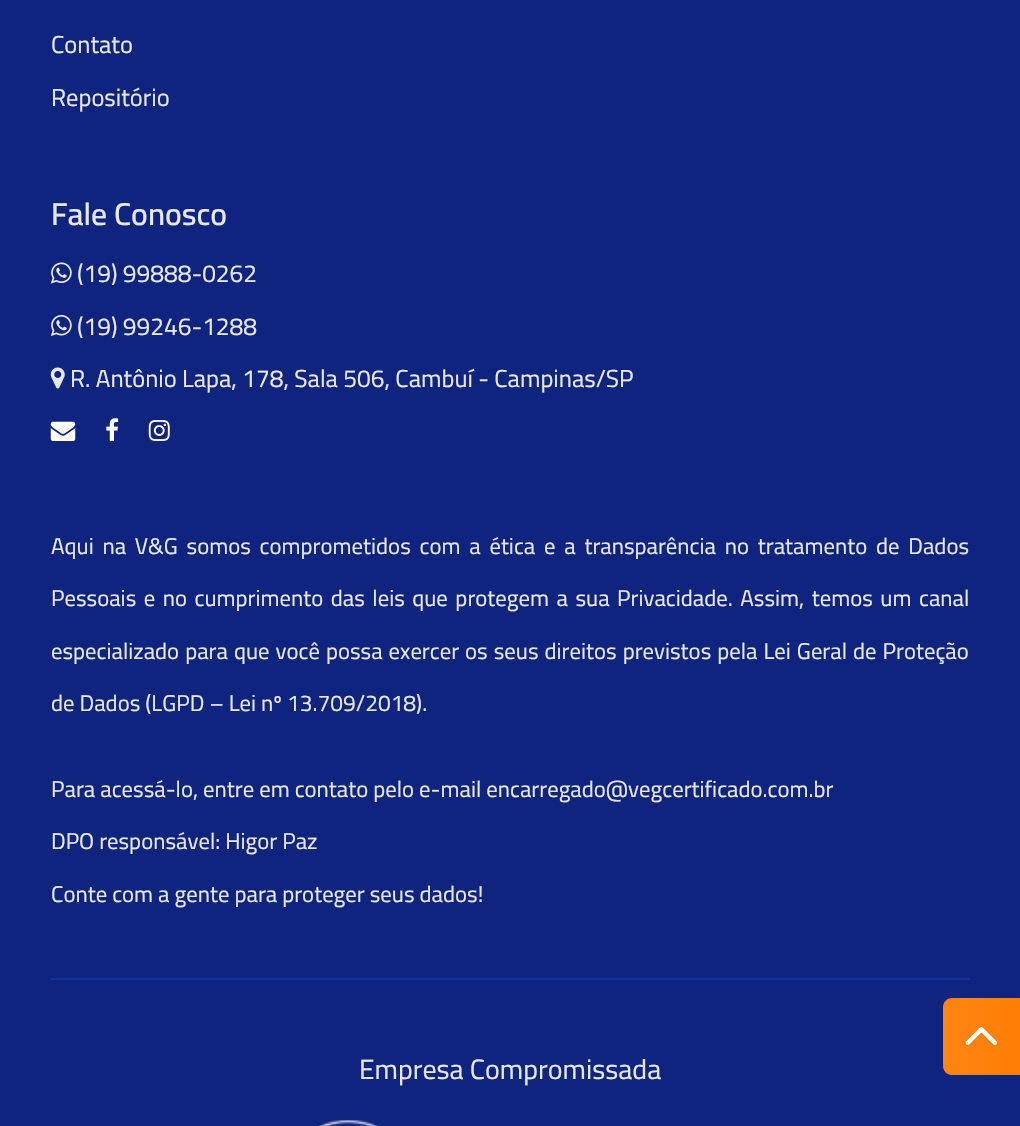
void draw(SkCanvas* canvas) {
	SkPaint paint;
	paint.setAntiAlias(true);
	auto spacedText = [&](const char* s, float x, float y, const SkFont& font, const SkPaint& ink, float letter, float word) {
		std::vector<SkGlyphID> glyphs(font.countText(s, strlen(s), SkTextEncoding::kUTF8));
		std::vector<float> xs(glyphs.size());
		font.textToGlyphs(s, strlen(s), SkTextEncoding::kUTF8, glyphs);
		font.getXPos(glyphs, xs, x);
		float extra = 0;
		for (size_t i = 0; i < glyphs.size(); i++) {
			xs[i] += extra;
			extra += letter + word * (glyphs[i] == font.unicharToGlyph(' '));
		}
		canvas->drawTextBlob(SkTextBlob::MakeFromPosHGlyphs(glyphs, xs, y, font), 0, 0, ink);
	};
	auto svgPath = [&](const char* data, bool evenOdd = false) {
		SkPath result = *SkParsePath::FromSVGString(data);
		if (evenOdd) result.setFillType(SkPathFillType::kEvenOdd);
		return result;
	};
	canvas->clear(0xff0f247e);
	SkFont f1(fontMgr->matchFamilyStyle("Cairo", SkFontStyle::Normal()), 24.5);
	f1.setSubpixel(true);
	paint.setColor(0xffe7e7e7);
	canvas->drawString("Contato", 51, 53, f1, paint);
	canvas->drawString("Repositório", 51, 106, f1, paint);
	SkFont f2(fontMgr->matchFamilyStyle("Cairo", SkFontStyle(600, SkFontStyle::kNormal_Width, SkFontStyle::kUpright_Slant)), 31.5);
	f2.setSubpixel(true);
	canvas->drawString("Fale Conosco", 51, 225, f2, paint);
	canvas->drawImageRect(SkImages::DeferredFromEncodedData(SkData::MakeFromFileName("img1.png")), SkRect::MakeXYWH(50, 262, 22, 22), SkSamplingOptions());
	canvas->drawString("(19) 99888-0262", 77, 282, f1, paint);
	canvas->drawImageRect(SkImages::DeferredFromEncodedData(SkData::MakeFromFileName("img2.png")), SkRect::MakeXYWH(50, 314, 22, 22), SkSamplingOptions());
	canvas->drawString("(19) 99246-1288", 77, 335, f1, paint);
	canvas->drawImageRect(SkImages::DeferredFromEncodedData(SkData::MakeFromFileName("img3.png")), SkRect::MakeXYWH(50, 367, 15, 22), SkSamplingOptions());
	canvas->drawString("R. Antônio Lapa, 178, Sala 506, Cambuí - Campinas/SP", 70, 387, f1, paint);
	canvas->drawImageRect(SkImages::DeferredFromEncodedData(SkData::MakeFromFileName("img4.png")), SkRect::MakeXYWH(50, 421, 26, 20), SkSamplingOptions());
	canvas->drawImageRect(SkImages::DeferredFromEncodedData(SkData::MakeFromFileName("img5.png")), SkRect::MakeXYWH(106, 418, 13, 23), SkSamplingOptions());
	canvas->drawImageRect(SkImages::DeferredFromEncodedData(SkData::MakeFromFileName("img6.png")), SkRect::MakeXYWH(148, 420, 22, 21), SkSamplingOptions());
	SkFont f3(fontMgr->matchFamilyStyle("Cairo", SkFontStyle::Normal()), 22.75);
	f3.setSubpixel(true);
	spacedText("Aqui na V&G somos comprometidos com a ética e a transparência no tratamento de Dados", 51, 554, f3, paint, 0, 3.75);
	spacedText("Pessoais e no cumprimento das leis que protegem a sua Privacidade. Assim, temos um canal", 51, 606, f3, paint, 0, 2.5);
	spacedText("especializado para que você possa exercer os seus direitos previstos pela Lei Geral de Proteção", 51, 659, f3, paint, 0, 1);
	canvas->drawString("de Dados (LGPD – Lei nº 13.709/2018).", 51, 711, f3, paint);
	canvas->drawString("Para acessá-lo, entre em contato pelo e-mail encarregado@vegcertificado.com.br", 51, 797, f3, paint);
	canvas->drawString("DPO responsável: Higor Paz", 51, 849, f3, paint);
	canvas->drawString("Conte com a gente para proteger seus dados!", 51, 902, f3, paint);
	paint.setColor(0xff132ea2);
	canvas->drawRect(SkRect::MakeXYWH(51, 978, 919, 2), paint);
	SkFont f4(fontMgr->matchFamilyStyle("Cairo", SkFontStyle::Normal()), 28);
	f4.setSubpixel(true);
	paint.setColor(0xffe7e7e7);
	canvas->drawString("Empresa Compromissada", 359, 1079, f4, paint);
	canvas->drawImageRect(SkImages::DeferredFromEncodedData(SkData::MakeFromFileName("img7.png")), SkRect::MakeXYWH(318, 1120, 61, 6), SkSamplingOptions());
	{
		const SkColor colors[] = {0xffff8411, 0xffff7d00, 0xffff8411};
		const float stops[] = {0, 0.5, 1};
		const SkPoint ends[] = {{943, 1036}, {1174, 1036}};
		paint.setShader(SkGradientShader::MakeLinear(ends, colors, stops, 3, SkTileMode::kClamp));
		paint.setAlpha(255);
	}
	canvas->drawPath(svgPath("M952 998H1020V1075H952C947 1075 943 1071 943 1066V1007C943 1002 947 998 952 998Z"), paint);
	canvas->drawImageRect(SkImages::DeferredFromEncodedData(SkData::MakeFromFileName("img8.png")), SkRect::MakeXYWH(965, 1027, 32, 18), SkSamplingOptions());
}
